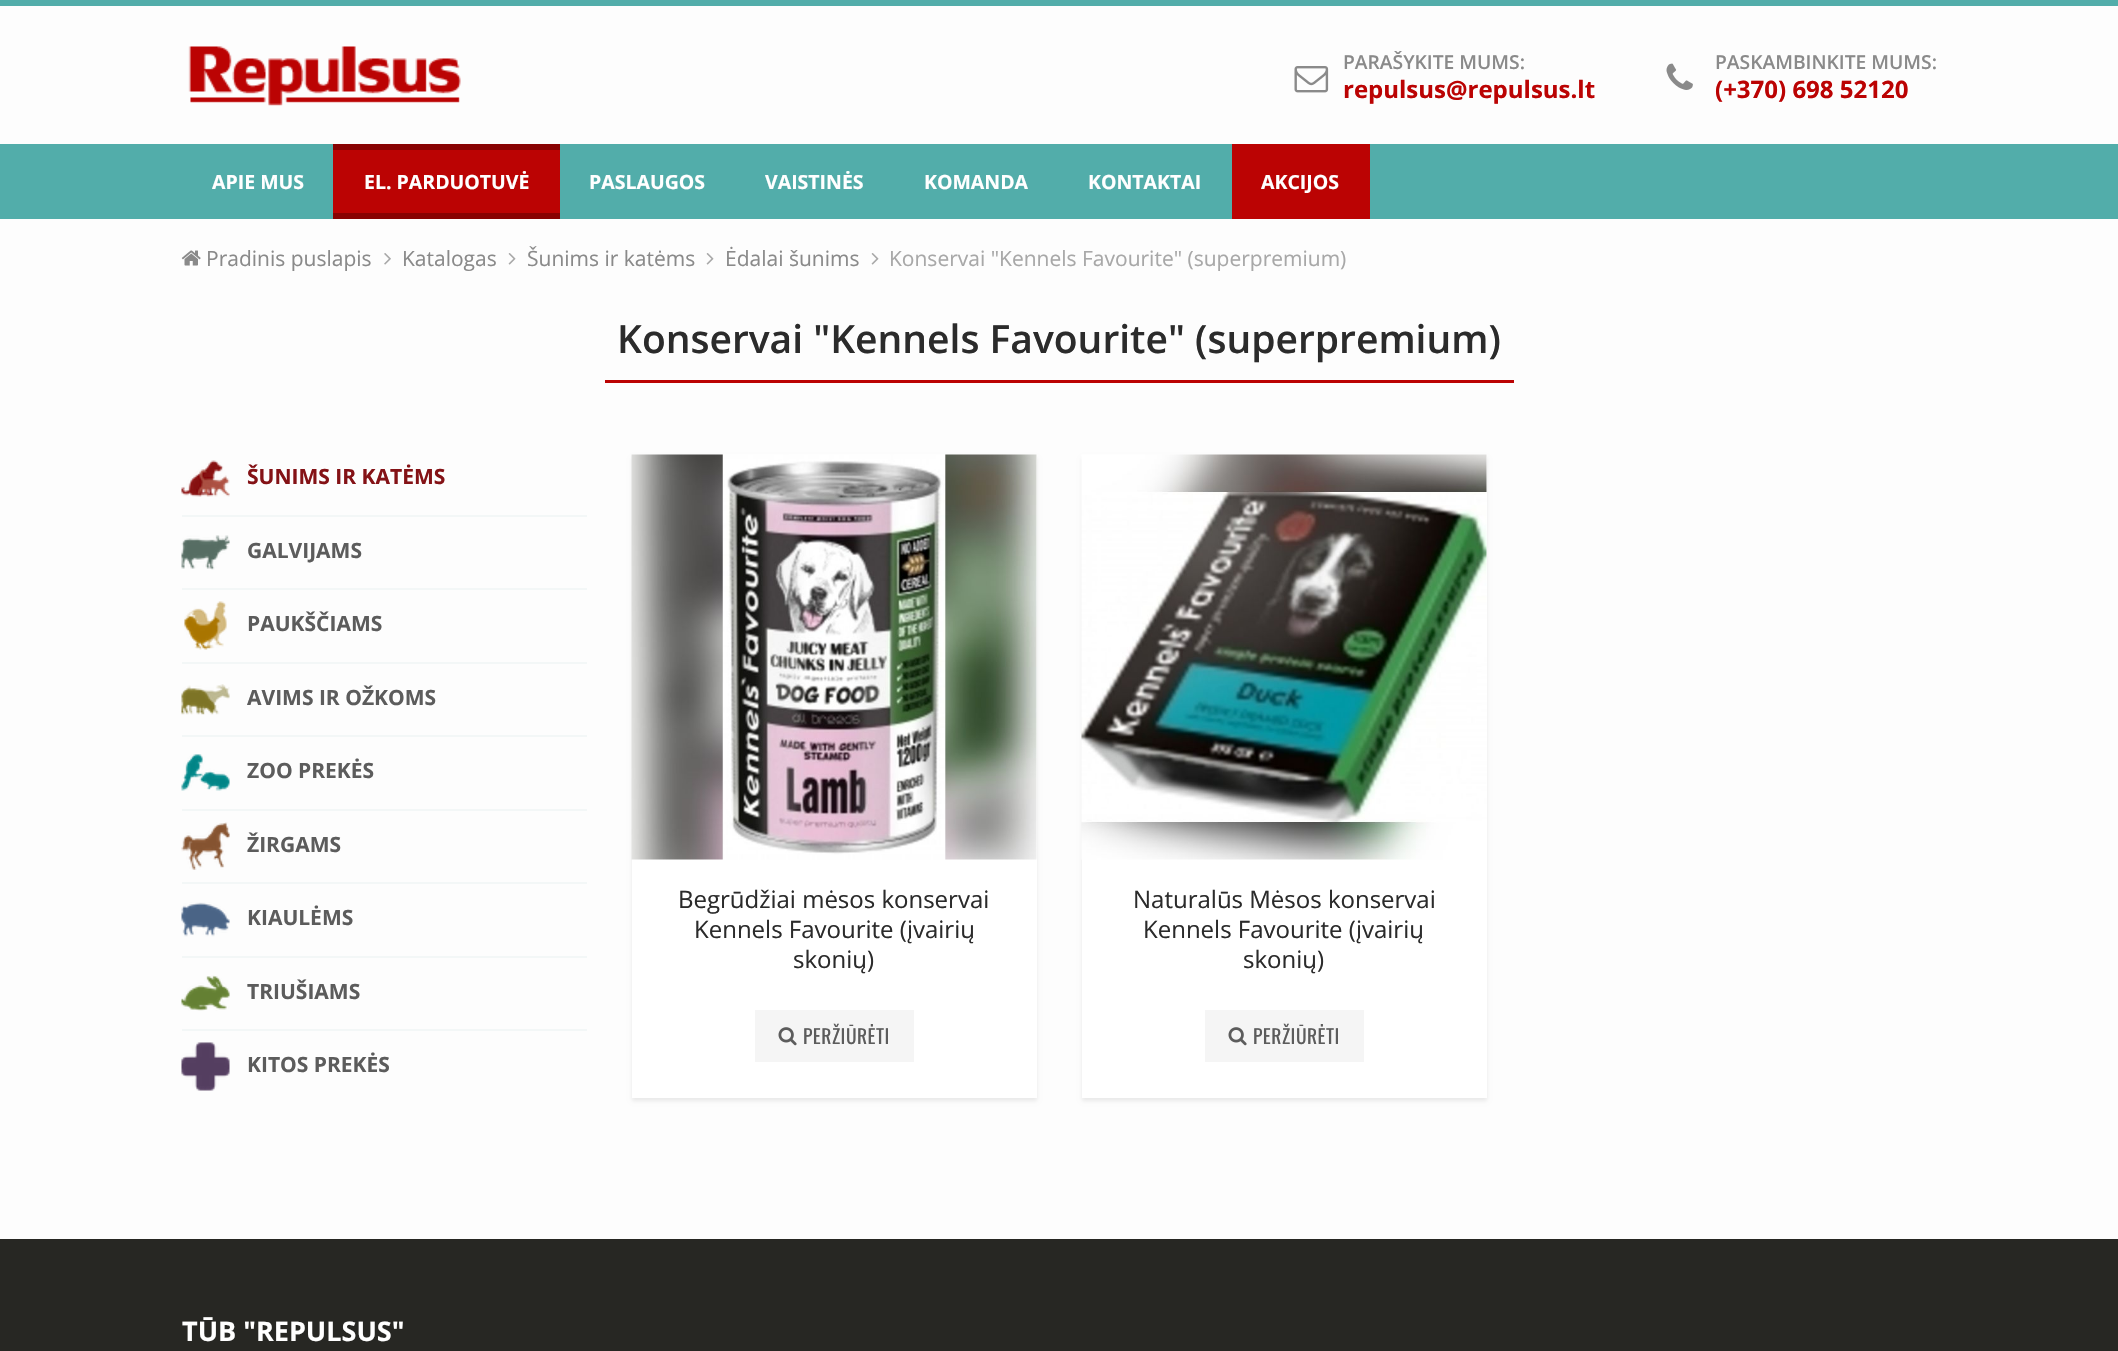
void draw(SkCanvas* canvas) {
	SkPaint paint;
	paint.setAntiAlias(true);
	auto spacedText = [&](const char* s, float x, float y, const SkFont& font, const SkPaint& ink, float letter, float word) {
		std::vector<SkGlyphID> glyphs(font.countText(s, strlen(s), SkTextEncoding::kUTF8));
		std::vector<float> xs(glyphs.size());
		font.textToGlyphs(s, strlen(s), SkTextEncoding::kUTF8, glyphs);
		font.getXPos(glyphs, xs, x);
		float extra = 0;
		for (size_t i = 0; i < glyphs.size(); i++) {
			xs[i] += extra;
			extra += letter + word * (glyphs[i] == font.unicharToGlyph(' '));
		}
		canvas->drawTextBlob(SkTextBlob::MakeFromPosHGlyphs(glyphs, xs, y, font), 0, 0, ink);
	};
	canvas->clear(0xfffdfdfd);
	paint.setColor(0xff52adaa);
	canvas->drawRect(SkRect::MakeXYWH(0, 0, 2118, 6), paint);
	canvas->drawImageRect(SkImages::DeferredFromEncodedData(SkData::MakeFromFileName("img1.png")), SkRect::MakeXYWH(188, 46, 273, 60), SkSamplingOptions());
	SkFont f1(fontMgr->matchFamilyStyle("Open Sans", SkFontStyle(600, SkFontStyle::kNormal_Width, SkFontStyle::kUpright_Slant)), 19.25);
	f1.setSubpixel(true);
	paint.setColor(0xff8a8a8a);
	canvas->drawString("PARAŠYKITE MUMS:", 1343, 69, f1, paint);
	canvas->drawImageRect(SkImages::DeferredFromEncodedData(SkData::MakeFromFileName("img2.png")), SkRect::MakeXYWH(1294, 66, 35, 27), SkSamplingOptions());
	SkFont f2(fontMgr->matchFamilyStyle("Open Sans", SkFontStyle::Bold()), 24);
	f2.setSubpixel(true);
	paint.setColor(0xffbb0303);
	canvas->drawString("repulsus@repulsus.lt", 1343, 98, f2, paint);
	canvas->drawImageRect(SkImages::DeferredFromEncodedData(SkData::MakeFromFileName("img3.png")), SkRect::MakeXYWH(1666, 63, 27, 27), SkSamplingOptions());
	paint.setColor(0xff8a8a8a);
	canvas->drawString("PASKAMBINKITE MUMS:", 1715, 69, f1, paint);
	paint.setColor(0xffbb0303);
	canvas->drawString("(+370) 698 52120", 1715, 98, f2, paint);
	paint.setColor(0xff52adaa);
	canvas->drawRect(SkRect::MakeXYWH(0, 144, 2118, 75), paint);
	SkFont f3(fontMgr->matchFamilyStyle("Open Sans", SkFontStyle::Bold()), 19.5);
	f3.setSubpixel(true);
	paint.setColor(0xffffffff);
	canvas->drawString("APIE MUS", 212, 189, f3, paint);
	paint.setColor(0xffbb0303);
	canvas->drawRect(SkRect::MakeXYWH(333, 150, 227, 63), paint);
	paint.setColor(0xff880202);
	canvas->drawRect(SkRect::MakeXYWH(333, 144, 227, 6), paint);
	canvas->drawRect(SkRect::MakeXYWH(333, 213, 227, 6), paint);
	paint.setColor(0xffffffff);
	canvas->drawString("EL. PARDUOTUVĖ", 364, 189, f3, paint);
	canvas->drawString("PASLAUGOS", 589, 189, f3, paint);
	canvas->drawString("VAISTINĖS", 765, 189, f3, paint);
	canvas->drawString("KOMANDA", 924, 189, f3, paint);
	canvas->drawString("KONTAKTAI", 1088, 189, f3, paint);
	paint.setColor(0xffbb0303);
	canvas->drawRect(SkRect::MakeXYWH(1232, 144, 138, 75), paint);
	paint.setColor(0xffffffff);
	canvas->drawString("AKCIJOS", 1261, 189, f3, paint);
	canvas->drawImageRect(SkImages::DeferredFromEncodedData(SkData::MakeFromFileName("img4.png")), SkRect::MakeXYWH(181, 250, 20, 16), SkSamplingOptions());
	SkFont f4(fontMgr->matchFamilyStyle("Open Sans", SkFontStyle::Normal()), 21);
	f4.setSubpixel(true);
	paint.setColor(0xff8a8a8a);
	canvas->drawString("Pradinis puslapis", 206, 266, f4, paint);
	canvas->drawImageRect(SkImages::DeferredFromEncodedData(SkData::MakeFromFileName("img5.png")), SkRect::MakeXYWH(384, 253, 7, 12), SkSamplingOptions());
	canvas->drawString("Katalogas", 402, 266, f4, paint);
	canvas->drawImageRect(SkImages::DeferredFromEncodedData(SkData::MakeFromFileName("img6.png")), SkRect::MakeXYWH(508, 253, 8, 12), SkSamplingOptions());
	canvas->drawString("Šunims ir katėms", 527, 266, f4, paint);
	canvas->drawImageRect(SkImages::DeferredFromEncodedData(SkData::MakeFromFileName("img6.png")), SkRect::MakeXYWH(706, 253, 8, 12), SkSamplingOptions());
	canvas->drawString("Ėdalai šunims", 725, 266, f4, paint);
	canvas->drawImageRect(SkImages::DeferredFromEncodedData(SkData::MakeFromFileName("img6.png")), SkRect::MakeXYWH(871, 253, 8, 12), SkSamplingOptions());
	paint.setColor(0xffa8a8a8);
	canvas->drawString("Konservai \"Kennels Favourite\" (superpremium)", 889, 266, f4, paint);
	paint.setColor(0xffbb0303);
	canvas->drawRect(SkRect::MakeXYWH(605, 380, 909, 3), paint);
	SkFont f5(fontMgr->matchFamilyStyle("Open Sans", SkFontStyle(600, SkFontStyle::kNormal_Width, SkFontStyle::kUpright_Slant)), 39);
	f5.setSubpixel(true);
	paint.setColor(0xff2b2b2b);
	canvas->drawString("Konservai \"Kennels Favourite\" (superpremium)", 617, 353, f5, paint);
	paint.setColor(0xfff3f7f7);
	canvas->drawRect(SkRect::MakeXYWH(182, 515, 405, 2), paint);
	canvas->drawImageRect(SkImages::DeferredFromEncodedData(SkData::MakeFromFileName("img7.png")), SkRect::MakeXYWH(181, 460, 49, 37), SkSamplingOptions());
	SkFont f6(fontMgr->matchFamilyStyle("Open Sans", SkFontStyle::Bold()), 21);
	f6.setSubpixel(true);
	paint.setColor(0xff841216);
	canvas->drawString("ŠUNIMS IR KATĖMS", 247, 484, f6, paint);
	paint.setColor(0xfff3f7f7);
	canvas->drawRect(SkRect::MakeXYWH(182, 588, 405, 2), paint);
	canvas->drawImageRect(SkImages::DeferredFromEncodedData(SkData::MakeFromFileName("img8.png")), SkRect::MakeXYWH(181, 535, 49, 35), SkSamplingOptions());
	paint.setColor(0xff5c5c5c);
	canvas->drawString("GALVIJAMS", 247, 558, f6, paint);
	paint.setColor(0xfff3f7f7);
	canvas->drawRect(SkRect::MakeXYWH(182, 662, 405, 2), paint);
	canvas->drawImageRect(SkImages::DeferredFromEncodedData(SkData::MakeFromFileName("img9.png")), SkRect::MakeXYWH(184, 601, 43, 49), SkSamplingOptions());
	paint.setColor(0xff5c5c5c);
	canvas->drawString("PAUKŠČIAMS", 247, 631, f6, paint);
	paint.setColor(0xfff3f7f7);
	canvas->drawRect(SkRect::MakeXYWH(182, 735, 405, 2), paint);
	canvas->drawImageRect(SkImages::DeferredFromEncodedData(SkData::MakeFromFileName("img10.png")), SkRect::MakeXYWH(181, 684, 49, 31), SkSamplingOptions());
	paint.setColor(0xff5c5c5c);
	canvas->drawString("AVIMS IR OŽKOMS", 247, 705, f6, paint);
	paint.setColor(0xfff3f7f7);
	canvas->drawRect(SkRect::MakeXYWH(182, 809, 405, 2), paint);
	canvas->drawImageRect(SkImages::DeferredFromEncodedData(SkData::MakeFromFileName("img11.png")), SkRect::MakeXYWH(181, 754, 49, 37), SkSamplingOptions());
	paint.setColor(0xff5c5c5c);
	canvas->drawString("ZOO PREKĖS", 247, 778, f6, paint);
	paint.setColor(0xfff3f7f7);
	canvas->drawRect(SkRect::MakeXYWH(182, 882, 405, 2), paint);
	canvas->drawImageRect(SkImages::DeferredFromEncodedData(SkData::MakeFromFileName("img12.png")), SkRect::MakeXYWH(181, 822, 49, 48), SkSamplingOptions());
	paint.setColor(0xff5c5c5c);
	canvas->drawString("ŽIRGAMS", 247, 852, f6, paint);
	paint.setColor(0xfff3f7f7);
	canvas->drawRect(SkRect::MakeXYWH(182, 956, 405, 2), paint);
	canvas->drawImageRect(SkImages::DeferredFromEncodedData(SkData::MakeFromFileName("img13.png")), SkRect::MakeXYWH(181, 902, 49, 35), SkSamplingOptions());
	paint.setColor(0xff5c5c5c);
	canvas->drawString("KIAULĖMS", 247, 925, f6, paint);
	paint.setColor(0xfff3f7f7);
	canvas->drawRect(SkRect::MakeXYWH(182, 1029, 405, 2), paint);
	canvas->drawImageRect(SkImages::DeferredFromEncodedData(SkData::MakeFromFileName("img14.png")), SkRect::MakeXYWH(181, 975, 49, 36), SkSamplingOptions());
	paint.setColor(0xff5c5c5c);
	canvas->drawString("TRIUŠIAMS", 247, 999, f6, paint);
	canvas->drawImageRect(SkImages::DeferredFromEncodedData(SkData::MakeFromFileName("img15.png")), SkRect::MakeXYWH(181, 1042, 49, 49), SkSamplingOptions());
	canvas->drawString("KITOS PREKĖS", 247, 1072, f6, paint);
	paint.setColor(0x14000000);
	paint.setMaskFilter(SkMaskFilter::MakeBlur(kNormal_SkBlurStyle, 2));
	canvas->drawRect(SkRect::MakeXYWH(632, 458, 405, 643), paint);
	paint.setMaskFilter(nullptr);
	paint.setColor(0xffffffff);
	canvas->drawRect(SkRect::MakeXYWH(632, 455, 405, 643), paint);
	canvas->drawImageRect(SkImages::DeferredFromEncodedData(SkData::MakeFromFileName("img16.png")), SkRect::MakeXYWH(631, 454, 406, 406), SkSamplingOptions());
	SkFont f7(fontMgr->matchFamilyStyle("Open Sans", SkFontStyle::Normal()), 24);
	f7.setSubpixel(true);
	paint.setColor(0xff2b2b2b);
	canvas->drawString("Begrūdžiai mėsos konservai", 678, 908, f7, paint);
	canvas->drawString("Kennels Favourite (įvairių", 694, 938, f7, paint);
	canvas->drawString("skonių)", 793, 968, f7, paint);
	paint.setColor(0xfff5f5f5);
	canvas->drawRect(SkRect::MakeXYWH(755, 1010, 159, 52), paint);
	canvas->drawImageRect(SkImages::DeferredFromEncodedData(SkData::MakeFromFileName("img17.png")), SkRect::MakeXYWH(778, 1027, 19, 19), SkSamplingOptions());
	SkFont f8(fontMgr->matchFamilyStyle("Oswald", SkFontStyle::Normal()), 19.5);
	f8.setSubpixel(true);
	paint.setColor(0xff5c5c5c);
	spacedText("PERŽIŪRĖTI", 803, 1044, f8, paint, 0.5, 0);
	paint.setColor(0x14000000);
	paint.setMaskFilter(SkMaskFilter::MakeBlur(kNormal_SkBlurStyle, 2));
	canvas->drawRect(SkRect::MakeXYWH(1082, 458, 405, 643), paint);
	paint.setMaskFilter(nullptr);
	paint.setColor(0xffffffff);
	canvas->drawRect(SkRect::MakeXYWH(1082, 455, 405, 643), paint);
	canvas->drawImageRect(SkImages::DeferredFromEncodedData(SkData::MakeFromFileName("img18.png")), SkRect::MakeXYWH(1081, 454, 406, 406), SkSamplingOptions());
	paint.setColor(0xff2b2b2b);
	canvas->drawString("Naturalūs Mėsos konservai", 1133, 908, f7, paint);
	canvas->drawString("Kennels Favourite (įvairių", 1143, 938, f7, paint);
	canvas->drawString("skonių)", 1243, 968, f7, paint);
	paint.setColor(0xfff5f5f5);
	canvas->drawRect(SkRect::MakeXYWH(1205, 1010, 159, 52), paint);
	canvas->drawImageRect(SkImages::DeferredFromEncodedData(SkData::MakeFromFileName("img17.png")), SkRect::MakeXYWH(1228, 1027, 19, 19), SkSamplingOptions());
	paint.setColor(0xff5c5c5c);
	spacedText("PERŽIŪRĖTI", 1253, 1044, f8, paint, 0.5, 0);
	paint.setColor(0xff272723);
	canvas->drawRect(SkRect::MakeXYWH(0, 1239, 2118, 112), paint);
	SkFont f9(fontMgr->matchFamilyStyle("Open Sans", SkFontStyle::Bold()), 27);
	f9.setSubpixel(true);
	paint.setColor(0xffffffff);
	canvas->drawString("TŪB \"REPULSUS\"", 182, 1341, f9, paint);
}
